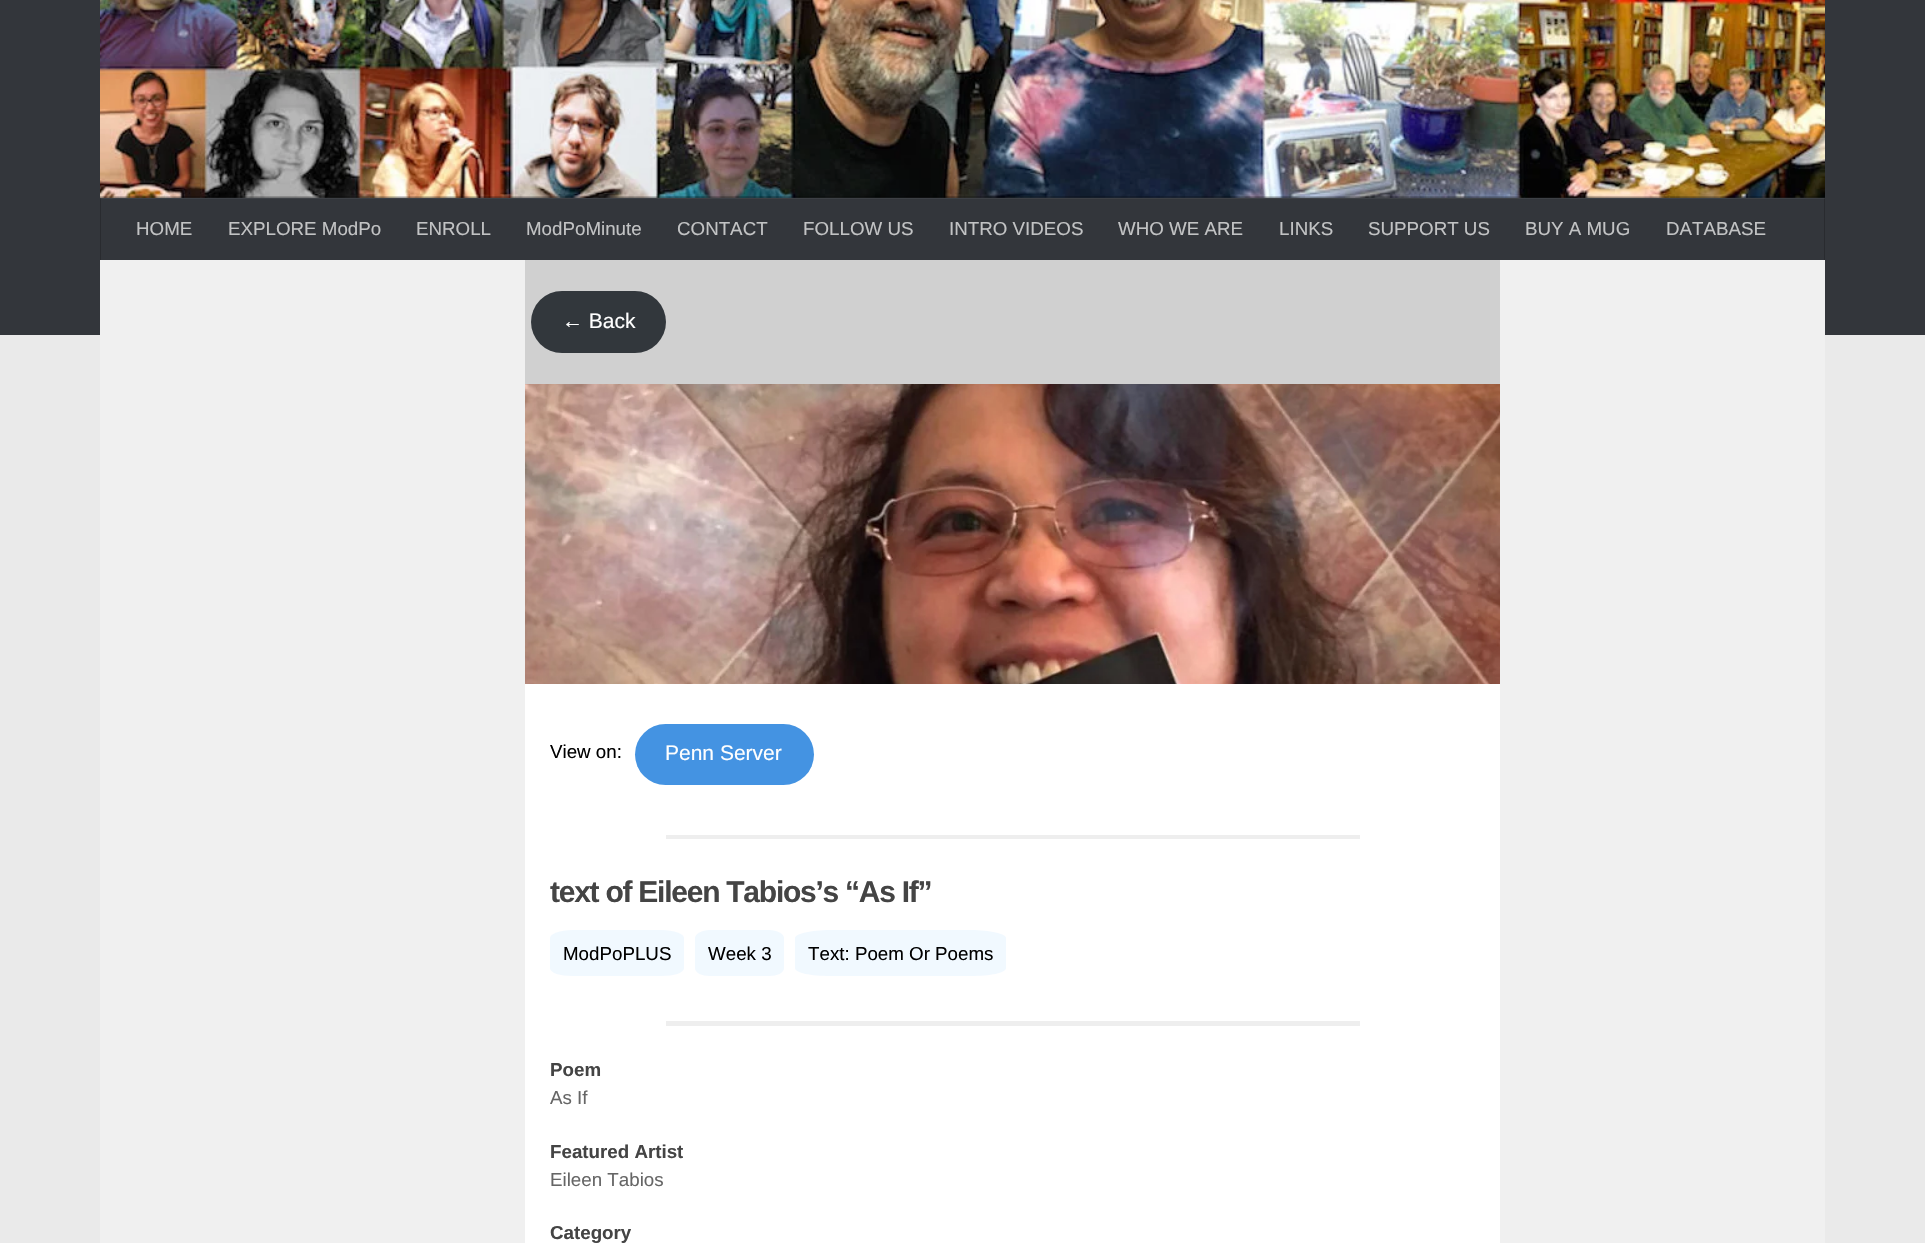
void draw(SkCanvas* canvas) {
	SkPaint paint;
	paint.setAntiAlias(true);
	auto spacedText = [&](const char* s, float x, float y, const SkFont& font, const SkPaint& ink, float letter, float word) {
		std::vector<SkGlyphID> glyphs(font.countText(s, strlen(s), SkTextEncoding::kUTF8));
		std::vector<float> xs(glyphs.size());
		font.textToGlyphs(s, strlen(s), SkTextEncoding::kUTF8, glyphs);
		font.getXPos(glyphs, xs, x);
		float extra = 0;
		for (size_t i = 0; i < glyphs.size(); i++) {
			xs[i] += extra;
			extra += letter + word * (glyphs[i] == font.unicharToGlyph(' '));
		}
		canvas->drawTextBlob(SkTextBlob::MakeFromPosHGlyphs(glyphs, xs, y, font), 0, 0, ink);
	};
	auto svgPath = [&](const char* data, bool evenOdd = false) {
		SkPath result = *SkParsePath::FromSVGString(data);
		if (evenOdd) result.setFillType(SkPathFillType::kEvenOdd);
		return result;
	};
	canvas->clear(0xffeaeaea);
	paint.setColor(0xff33363b);
	canvas->drawRect(SkRect::MakeXYWH(0, 0, 1925, 335), paint);
	paint.setColor(0xff3d4045);
	canvas->drawRect(SkRect::MakeXYWH(100, 198, 1725, 1), paint);
	canvas->drawImageRect(SkImages::DeferredFromEncodedData(SkData::MakeFromFileName("img1.png")), SkRect::MakeXYWH(100, 0, 1725, 198), SkSamplingOptions());
	paint.setColor(0x33000000);
	canvas->drawRect(SkRect::MakeXYWH(100, 196, 1725, 2), paint);
	paint.setColor(0xff292b2f);
	canvas->drawRect(SkRect::MakeXYWH(1824, 198, 1, 62), paint);
	paint.setColor(0xff343639);
	canvas->drawRect(SkRect::MakeXYWH(1824, 198, 1, 1), paint);
	paint.setColor(0xff292b2f);
	canvas->drawRect(SkRect::MakeXYWH(100, 198, 1, 62), paint);
	paint.setColor(0xff343639);
	canvas->drawRect(SkRect::MakeXYWH(100, 198, 1, 1), paint);
	SkFont f1(fontMgr->matchFamilyStyle("Liberation Sans", SkFontStyle::Normal()), 18.75);
	f1.setSubpixel(true);
	paint.setColor(0xffc2c3c4);
	canvas->drawString("HOME", 136, 235, f1, paint);
	canvas->drawString("EXPLORE ModPo", 228, 235, f1, paint);
	canvas->drawString("ENROLL", 416, 235, f1, paint);
	canvas->drawString("ModPoMinute", 526, 235, f1, paint);
	canvas->drawString("CONTACT", 677, 235, f1, paint);
	canvas->drawString("FOLLOW US", 803, 235, f1, paint);
	canvas->drawString("INTRO VIDEOS", 949, 235, f1, paint);
	canvas->drawString("WHO WE ARE", 1118, 235, f1, paint);
	canvas->drawString("LINKS", 1279, 235, f1, paint);
	canvas->drawString("SUPPORT US", 1368, 235, f1, paint);
	canvas->drawString("BUY A MUG", 1525, 235, f1, paint);
	canvas->drawString("DATABASE", 1666, 235, f1, paint);
	paint.setColor(0xffffffff);
	canvas->drawRect(SkRect::MakeXYWH(525, 684, 975, 559), paint);
	paint.setColor(0xfff0f0f0);
	canvas->drawRect(SkRect::MakeXYWH(100, 260, 425, 983), paint);
	paint.setColor(0xffd0d0d0);
	canvas->drawRect(SkRect::MakeXYWH(525, 260, 975, 124), paint);
	paint.setColor(0xff32373c);
	canvas->drawRoundRect(SkRect::MakeXYWH(531, 291, 135, 62), 31, 31, paint);
	SkFont f2(fontMgr->matchFamilyStyle("Liberation Sans", SkFontStyle::Normal()), 21);
	f2.setSubpixel(true);
	paint.setColor(0xffffffff);
	canvas->drawString("← Back", 562, 328, f2, paint);
	canvas->drawImageRect(SkImages::DeferredFromEncodedData(SkData::MakeFromFileName("img2.png")), SkRect::MakeXYWH(525, 384, 975, 300), SkSamplingOptions());
	paint.setColor(0xff000000);
	canvas->drawString("View on:", 550, 758, f1, paint);
	paint.setColor(0xff4493e2);
	canvas->drawRoundRect(SkRect::MakeXYWH(635, 724, 179, 61), 30.5, 30.5, paint);
	paint.setColor(0xffffffff);
	canvas->drawString("Penn Server", 665, 760, f2, paint);
	paint.setColor(0xffeeeeee);
	canvas->drawRect(SkRect::MakeXYWH(666, 835, 694, 4), paint);
	SkFont f3(fontMgr->matchFamilyStyle("Liberation Sans", SkFontStyle::Bold()), 30);
	f3.setSubpixel(true);
	paint.setColor(0xff444444);
	spacedText("text of Eileen Tabios’s “As If”", 550, 902, f3, paint, -1.25, 0);
	paint.setColor(0xfff1f9ff);
	canvas->drawPath(svgPath("M573 930H661C674 930 684 934 684 938V968C684 973 674 976 661 976H573C560 976 550 973 550 968V938C550 934 560 930 573 930Z"), paint);
	paint.setColor(0xff000000);
	canvas->drawString("ModPoPLUS", 563, 960, f1, paint);
	paint.setColor(0xfff1f9ff);
	canvas->drawPath(svgPath("M710 930H769C777 930 784 934 784 938V968C784 973 777 976 769 976H710C702 976 695 973 695 968V938C695 934 702 930 710 930Z"), paint);
	paint.setColor(0xff000000);
	canvas->drawString("Week 3", 708, 960, f1, paint);
	paint.setColor(0xfff1f9ff);
	canvas->drawPath(svgPath("M831 930H970C990 930 1006 934 1006 938V968C1006 973 990 976 970 976H831C811 976 795 973 795 968V938C795 934 811 930 831 930Z"), paint);
	paint.setColor(0xff000000);
	canvas->drawString("Text: Poem Or Poems", 808, 960, f1, paint);
	paint.setColor(0xffeeeeee);
	canvas->drawRect(SkRect::MakeXYWH(666, 1021, 694, 5), paint);
	SkFont f4(fontMgr->matchFamilyStyle("Liberation Sans", SkFontStyle::Bold()), 18.75);
	f4.setSubpixel(true);
	paint.setColor(0xff444444);
	canvas->drawString("Poem", 550, 1076, f4, paint);
	paint.setColor(0xff666666);
	canvas->drawString("As If", 550, 1104, f1, paint);
	paint.setColor(0xff444444);
	canvas->drawString("Featured Artist", 550, 1158, f4, paint);
	paint.setColor(0xff666666);
	canvas->drawString("Eileen Tabios", 550, 1186, f1, paint);
	paint.setColor(0xff444444);
	canvas->drawString("Category", 550, 1239, f4, paint);
	paint.setColor(0xfff0f0f0);
	canvas->drawRect(SkRect::MakeXYWH(1500, 260, 325, 983), paint);
}
